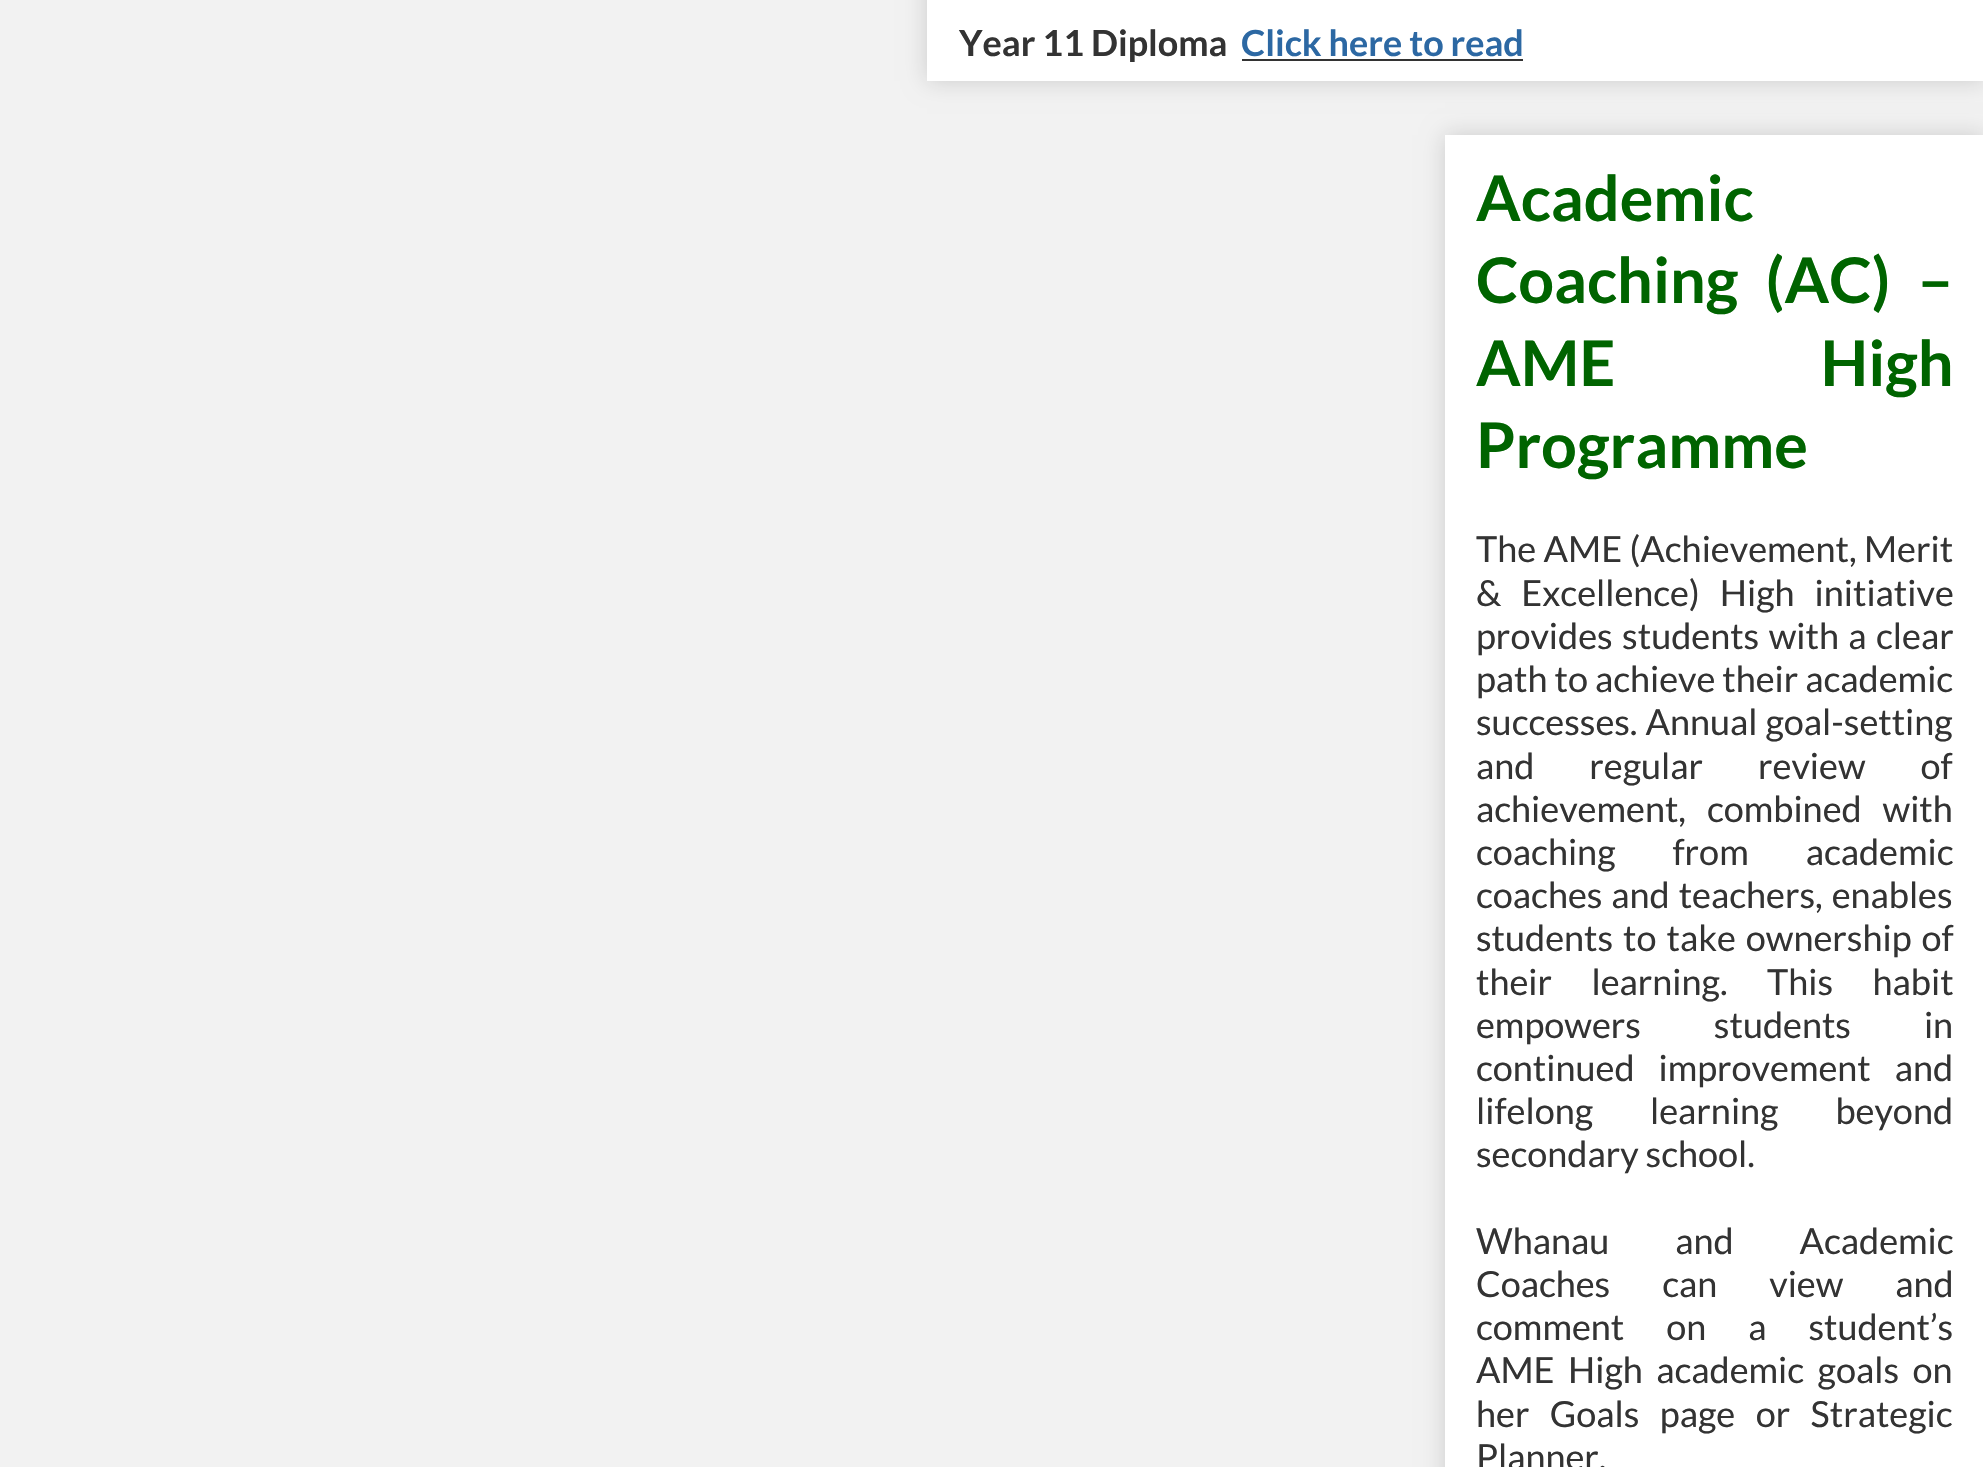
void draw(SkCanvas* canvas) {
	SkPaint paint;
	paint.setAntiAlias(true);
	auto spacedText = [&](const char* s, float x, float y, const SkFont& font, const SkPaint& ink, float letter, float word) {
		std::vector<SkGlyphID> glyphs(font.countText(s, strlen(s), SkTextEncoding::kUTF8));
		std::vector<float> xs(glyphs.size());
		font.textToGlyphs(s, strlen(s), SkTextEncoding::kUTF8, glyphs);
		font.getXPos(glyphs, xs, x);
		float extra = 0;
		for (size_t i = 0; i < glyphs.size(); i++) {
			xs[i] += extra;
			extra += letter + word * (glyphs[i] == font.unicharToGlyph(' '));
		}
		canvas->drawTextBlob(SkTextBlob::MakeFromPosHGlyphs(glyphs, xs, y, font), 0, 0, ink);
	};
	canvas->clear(0xfff2f2f2);
	paint.setColor(0x29000000);
	paint.setMaskFilter(SkMaskFilter::MakeBlur(kNormal_SkBlurStyle, 11));
	canvas->drawRect(SkRect::MakeXYWH(927, -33, 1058, 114), paint);
	paint.setMaskFilter(nullptr);
	paint.setColor(0xffffffff);
	canvas->drawRect(SkRect::MakeXYWH(927, 0, 1056, 81), paint);
	SkFont f1(fontMgr->matchFamilyStyle("Lato", SkFontStyle::Bold()), 36);
	f1.setSubpixel(true);
	paint.setColor(0xff333333);
	canvas->drawString("Year 11 Diploma", 959, 56, f1, paint);
	paint.setColor(0xff2c68a3);
	canvas->drawString("Click here to read", 1241, 56, f1, paint);
	paint.setColor(0xff333333);
	canvas->drawRect(SkRect::MakeXYWH(1242, 59, 281, 2), paint);
	paint.setColor(0x29000000);
	paint.setMaskFilter(SkMaskFilter::MakeBlur(kNormal_SkBlurStyle, 11));
	canvas->drawRect(SkRect::MakeXYWH(1445, 135, 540, 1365), paint);
	paint.setMaskFilter(nullptr);
	paint.setColor(0xffffffff);
	canvas->drawRect(SkRect::MakeXYWH(1445, 135, 538, 1332), paint);
	SkFont f2(fontMgr->matchFamilyStyle("Lato", SkFontStyle::Bold()), 63);
	f2.setSubpixel(true);
	paint.setColor(0xff006400);
	canvas->drawString("Academic", 1476, 221, f2, paint);
	spacedText("Coaching (AC) –", 1476, 303, f2, paint, 0, 15);
	spacedText("AME High", 1476, 386, f2, paint, 0, 193);
	canvas->drawString("Programme", 1476, 468, f2, paint);
	SkFont f3(fontMgr->matchFamilyStyle("Lato", SkFontStyle::Normal()), 36);
	f3.setSubpixel(true);
	paint.setColor(0xff333333);
	spacedText("The AME (Achievement, Merit", 1476, 562, f3, paint, 0, 0.5);
	spacedText("& Excellence) High initiative", 1476, 606, f3, paint, 0, 13);
	spacedText("provides students with a clear", 1476, 649, f3, paint, 0, 2.5);
	canvas->drawString("path to achieve their academic", 1476, 692, f3, paint);
	spacedText("successes. Annual goal-setting", 1476, 735, f3, paint, 0, 1);
	spacedText("and regular review of", 1476, 779, f3, paint, 0, 48);
	spacedText("achievement, combined with", 1476, 822, f3, paint, 0, 14);
	spacedText("coaching from academic", 1476, 865, f3, paint, 0, 50);
	spacedText("coaches and teachers, enables", 1476, 908, f3, paint, 0, 2);
	spacedText("students to take ownership of", 1476, 951, f3, paint, 0, 3);
	spacedText("their learning. This habit", 1476, 995, f3, paint, 0, 32.5);
	spacedText("empowers students in", 1476, 1038, f3, paint, 0, 66);
	spacedText("continued improvement and", 1476, 1081, f3, paint, 0, 17);
	spacedText("lifelong learning beyond", 1476, 1124, f3, paint, 0, 50);
	canvas->drawString("secondary school.", 1476, 1167, f3, paint);
	spacedText("Whanau and Academic", 1476, 1254, f3, paint, 0, 59);
	spacedText("Coaches can view and", 1476, 1297, f3, paint, 0, 45);
	spacedText("comment on a student’s", 1476, 1340, f3, paint, 0, 35);
	spacedText("AME High academic goals on", 1476, 1383, f3, paint, 0, 6.5);
	spacedText("her Goals page or Strategic", 1476, 1427, f3, paint, 0, 13.5);
	canvas->drawString("Planner.", 1476, 1470, f3, paint);
}
